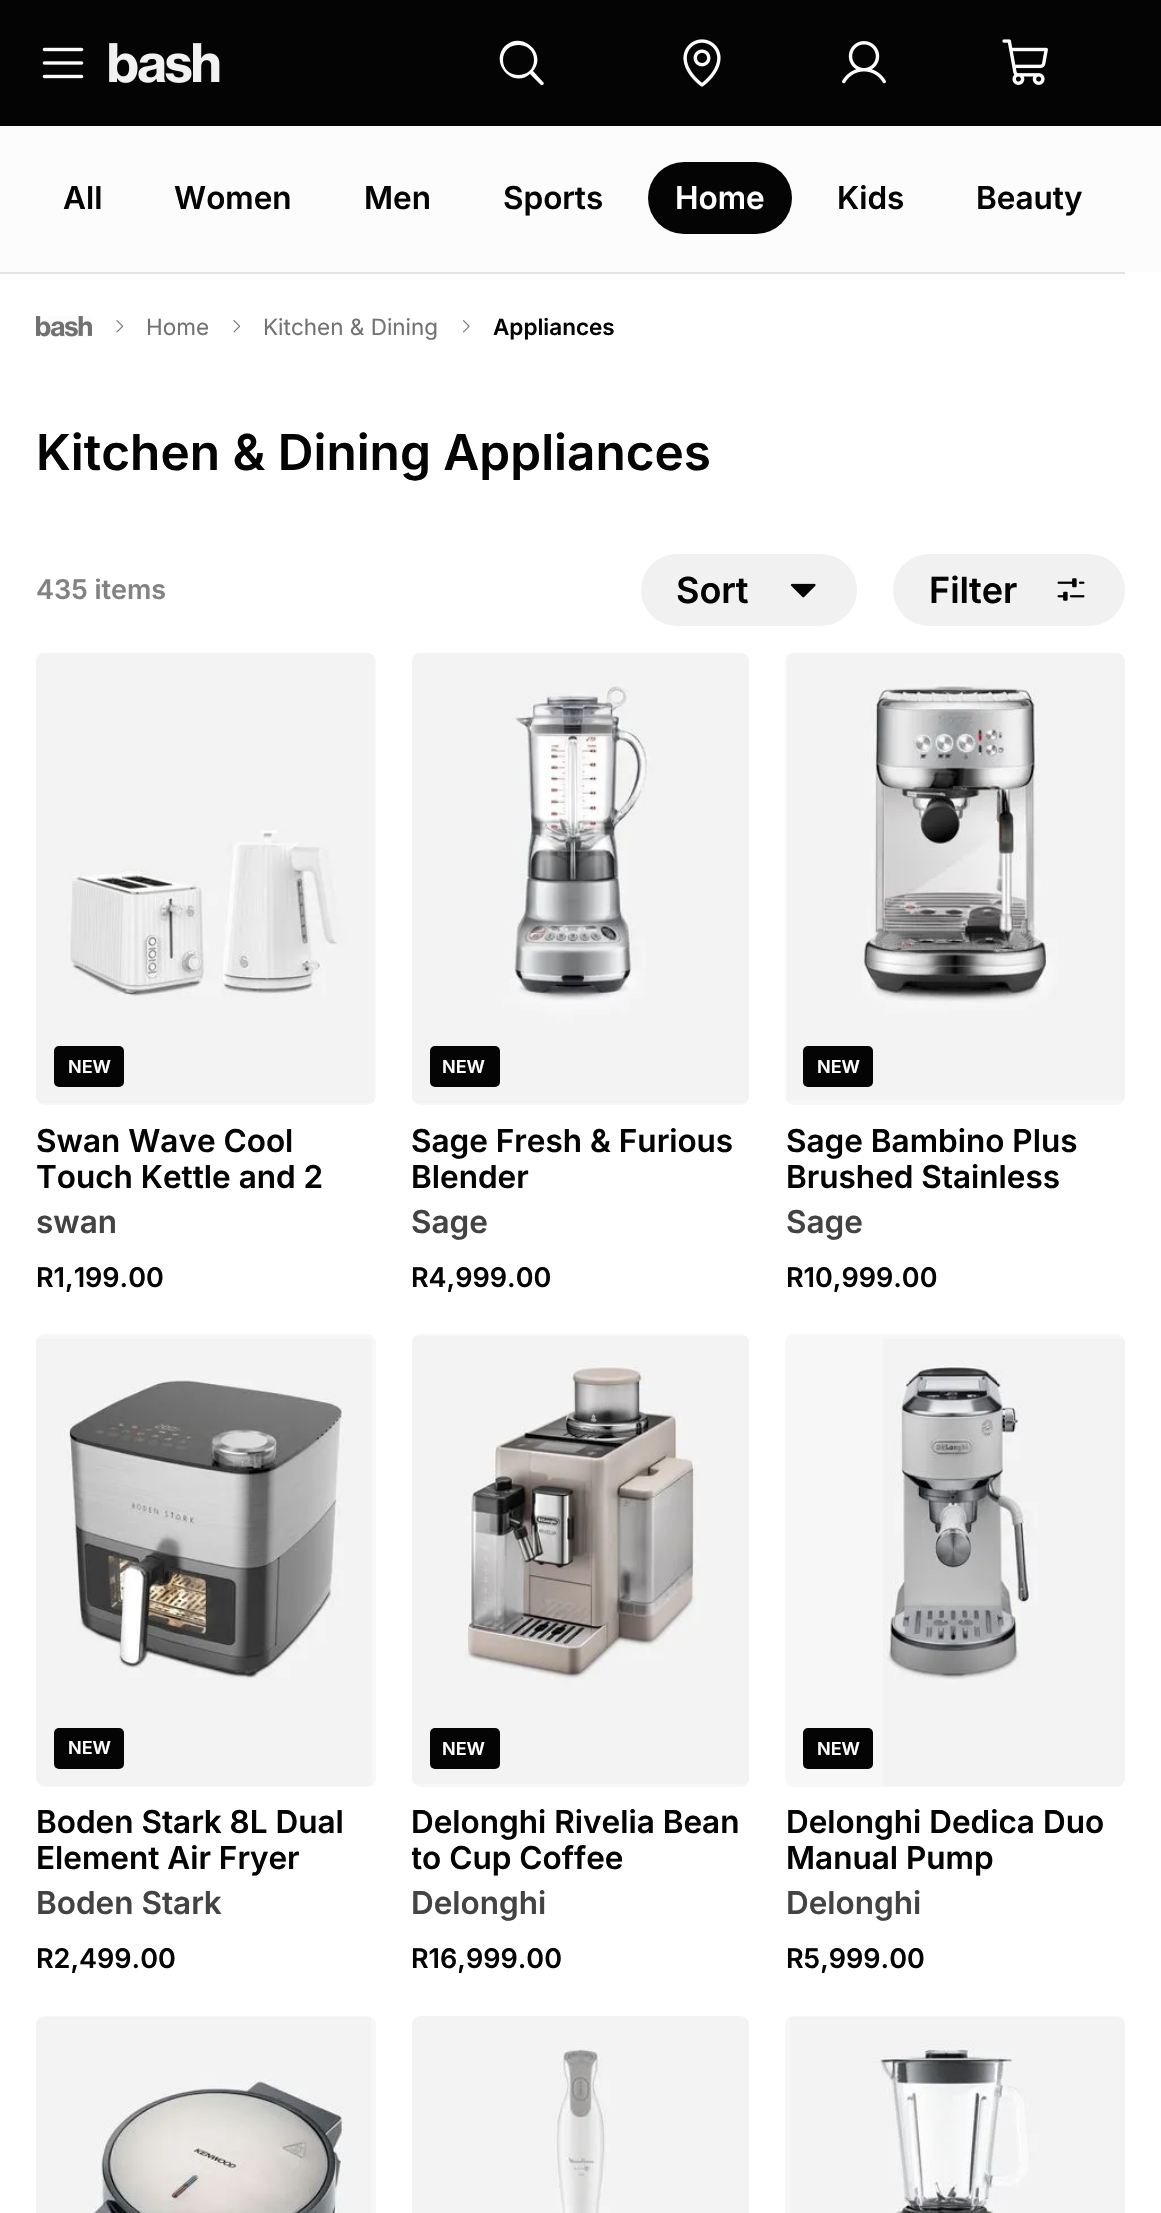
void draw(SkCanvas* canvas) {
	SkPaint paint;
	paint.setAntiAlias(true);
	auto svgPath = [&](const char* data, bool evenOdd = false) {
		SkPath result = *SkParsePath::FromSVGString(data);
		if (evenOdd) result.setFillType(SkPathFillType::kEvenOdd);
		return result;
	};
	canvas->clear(0xffffffff);
	paint.setColor(0xff040404);
	canvas->drawRect(SkRect::MakeXYWH(0, 0, 1161, 126), paint);
	canvas->drawImageRect(SkImages::DeferredFromEncodedData(SkData::MakeFromFileName("img1.png")), SkRect::MakeXYWH(42, 47, 42, 32), SkSamplingOptions());
	canvas->drawImageRect(SkImages::DeferredFromEncodedData(SkData::MakeFromFileName("img2.png")), SkRect::MakeXYWH(109, 43, 111, 40), SkSamplingOptions());
	paint.setColor(0xffffffff);
	canvas->drawPath(svgPath("M543 82L533 71C548 54 522 30 505 46C489 63 513 89 530 74L541 85C543 86 545 83 543 82ZM503 60C503 40 534 40 534 60C534 80 503 80 503 60Z"), paint);
	canvas->drawImageRect(SkImages::DeferredFromEncodedData(SkData::MakeFromFileName("img3.png")), SkRect::MakeXYWH(683, 39, 38, 48), SkSamplingOptions());
	canvas->drawImageRect(SkImages::DeferredFromEncodedData(SkData::MakeFromFileName("img4.png")), SkRect::MakeXYWH(842, 41, 44, 43), SkSamplingOptions());
	canvas->drawImageRect(SkImages::DeferredFromEncodedData(SkData::MakeFromFileName("img5.png")), SkRect::MakeXYWH(1002, 39, 46, 46), SkSamplingOptions());
	paint.setColor(0xfffcfcfc);
	canvas->drawRect(SkRect::MakeXYWH(0, 126, 1161, 146), paint);
	SkFont f1(fontMgr->matchFamilyStyle("Inter", SkFontStyle(600, SkFontStyle::kNormal_Width, SkFontStyle::kUpright_Slant)), 31.5);
	f1.setSubpixel(true);
	paint.setColor(0xff040404);
	canvas->drawString("All", 63, 209, f1, paint);
	canvas->drawString("Women", 174, 209, f1, paint);
	canvas->drawString("Men", 364, 209, f1, paint);
	canvas->drawString("Sports", 503, 209, f1, paint);
	canvas->drawRoundRect(SkRect::MakeXYWH(648, 162, 144, 72), 36, 36, paint);
	paint.setColor(0xffffffff);
	canvas->drawString("Home", 675, 209, f1, paint);
	paint.setColor(0xff040404);
	canvas->drawString("Kids", 837, 209, f1, paint);
	canvas->drawString("Beauty", 976, 209, f1, paint);
	paint.setColor(0xffe3e3e4);
	canvas->drawRect(SkRect::MakeXYWH(0, 272, 1125, 2), paint);
	canvas->drawImageRect(SkImages::DeferredFromEncodedData(SkData::MakeFromFileName("img6.png")), SkRect::MakeXYWH(36, 316, 56, 21), SkSamplingOptions());
	canvas->drawImageRect(SkImages::DeferredFromEncodedData(SkData::MakeFromFileName("img7.png")), SkRect::MakeXYWH(116, 320, 8, 13), SkSamplingOptions());
	SkFont f2(fontMgr->matchFamilyStyle("Inter", SkFontStyle::Normal()), 22.5);
	f2.setSubpixel(true);
	paint.setColor(0xff727272);
	canvas->drawString("Home", 146, 335, f2, paint);
	canvas->drawImageRect(SkImages::DeferredFromEncodedData(SkData::MakeFromFileName("img7.png")), SkRect::MakeXYWH(233, 320, 8, 13), SkSamplingOptions());
	canvas->drawString("Kitchen & Dining", 263, 335, f2, paint);
	canvas->drawImageRect(SkImages::DeferredFromEncodedData(SkData::MakeFromFileName("img8.png")), SkRect::MakeXYWH(463, 320, 7, 13), SkSamplingOptions());
	SkFont f3(fontMgr->matchFamilyStyle("Inter", SkFontStyle(600, SkFontStyle::kNormal_Width, SkFontStyle::kUpright_Slant)), 22.5);
	f3.setSubpixel(true);
	paint.setColor(0xff040404);
	canvas->drawString("Appliances", 493, 335, f3, paint);
	SkFont f4(fontMgr->matchFamilyStyle("Inter", SkFontStyle(600, SkFontStyle::kNormal_Width, SkFontStyle::kUpright_Slant)), 49.5);
	f4.setSubpixel(true);
	canvas->drawString("Kitchen & Dining Appliances", 36, 470, f4, paint);
	SkFont f5(fontMgr->matchFamilyStyle("Inter", SkFontStyle(600, SkFontStyle::kNormal_Width, SkFontStyle::kUpright_Slant)), 27);
	f5.setSubpixel(true);
	paint.setColor(0xff828282);
	canvas->drawString("435 items", 36, 599, f5, paint);
	paint.setColor(0xfff1f1f2);
	canvas->drawRoundRect(SkRect::MakeXYWH(641, 554, 216, 72), 36, 36, paint);
	SkFont f6(fontMgr->matchFamilyStyle("Inter", SkFontStyle(600, SkFontStyle::kNormal_Width, SkFontStyle::kUpright_Slant)), 36);
	f6.setSubpixel(true);
	paint.setColor(0xff040404);
	canvas->drawString("Sort", 676, 603, f6, paint);
	canvas->drawImageRect(SkImages::DeferredFromEncodedData(SkData::MakeFromFileName("img9.png")), SkRect::MakeXYWH(790, 583, 26, 15), SkSamplingOptions());
	paint.setColor(0xfff1f1f2);
	canvas->drawRoundRect(SkRect::MakeXYWH(893, 554, 232, 72), 36, 36, paint);
	paint.setColor(0xff040404);
	canvas->drawString("Filter", 929, 603, f6, paint);
	canvas->drawImageRect(SkImages::DeferredFromEncodedData(SkData::MakeFromFileName("img10.png")), SkRect::MakeXYWH(1057, 578, 28, 23), SkSamplingOptions());
	paint.setColor(0xfff7f7f7);
	canvas->drawRoundRect(SkRect::MakeXYWH(36, 653, 340, 452), 9, 9, paint);
	canvas->drawImageRect(SkImages::DeferredFromEncodedData(SkData::MakeFromFileName("img11.png")), SkRect::MakeXYWH(36, 653, 338, 450), SkSamplingOptions());
	paint.setColor(0xff040404);
	canvas->drawRoundRect(SkRect::MakeXYWH(54, 1046, 70, 41), 5, 5, paint);
	SkFont f7(fontMgr->matchFamilyStyle("Inter", SkFontStyle(600, SkFontStyle::kNormal_Width, SkFontStyle::kUpright_Slant)), 18);
	f7.setSubpixel(true);
	paint.setColor(0xffffffff);
	canvas->drawString("NEW", 68, 1073, f7, paint);
	paint.setColor(0xff040404);
	canvas->drawString("Swan Wave Cool", 36, 1152, f1, paint);
	canvas->drawString("Touch Kettle and 2", 36, 1188, f1, paint);
	paint.setColor(0xff434343);
	canvas->drawString("swan", 36, 1233, f1, paint);
	paint.setColor(0xff040404);
	canvas->drawString("R1,199.00", 36, 1287, f5, paint);
	paint.setColor(0xfff7f7f7);
	canvas->drawRoundRect(SkRect::MakeXYWH(412, 653, 337, 452), 9, 9, paint);
	canvas->drawImageRect(SkImages::DeferredFromEncodedData(SkData::MakeFromFileName("img12.png")), SkRect::MakeXYWH(412, 653, 337, 450), SkSamplingOptions());
	paint.setColor(0xff040404);
	canvas->drawRoundRect(SkRect::MakeXYWH(430, 1046, 70, 41), 5, 5, paint);
	paint.setColor(0xffffffff);
	canvas->drawString("NEW", 442, 1073, f7, paint);
	paint.setColor(0xff040404);
	canvas->drawString("Sage Fresh & Furious", 411, 1152, f1, paint);
	canvas->drawString("Blender", 411, 1188, f1, paint);
	paint.setColor(0xff434343);
	canvas->drawString("Sage", 411, 1233, f1, paint);
	paint.setColor(0xff040404);
	canvas->drawString("R4,999.00", 411, 1287, f5, paint);
	paint.setColor(0xfff7f7f7);
	canvas->drawRoundRect(SkRect::MakeXYWH(785, 653, 340, 452), 9, 9, paint);
	canvas->drawImageRect(SkImages::DeferredFromEncodedData(SkData::MakeFromFileName("img13.png")), SkRect::MakeXYWH(787, 653, 338, 447), SkSamplingOptions());
	paint.setColor(0xff040404);
	canvas->drawRoundRect(SkRect::MakeXYWH(803, 1046, 70, 41), 5, 5, paint);
	paint.setColor(0xffffffff);
	canvas->drawString("NEW", 817, 1073, f7, paint);
	paint.setColor(0xff040404);
	canvas->drawString("Sage Bambino Plus", 786, 1152, f1, paint);
	canvas->drawString("Brushed Stainless", 786, 1188, f1, paint);
	paint.setColor(0xff434343);
	canvas->drawString("Sage", 786, 1233, f1, paint);
	paint.setColor(0xff040404);
	canvas->drawString("R10,999.00", 786, 1287, f5, paint);
	paint.setColor(0xfff7f7f7);
	canvas->drawRoundRect(SkRect::MakeXYWH(36, 1334, 340, 453), 9, 9, paint);
	canvas->drawImageRect(SkImages::DeferredFromEncodedData(SkData::MakeFromFileName("img14.png")), SkRect::MakeXYWH(36, 1339, 336, 447), SkSamplingOptions());
	paint.setColor(0xff040404);
	canvas->drawRoundRect(SkRect::MakeXYWH(54, 1728, 70, 41), 5, 5, paint);
	paint.setColor(0xffffffff);
	canvas->drawString("NEW", 68, 1754, f7, paint);
	paint.setColor(0xff040404);
	canvas->drawString("Boden Stark 8L Dual", 36, 1833, f1, paint);
	canvas->drawString("Element Air Fryer", 36, 1869, f1, paint);
	paint.setColor(0xff434343);
	canvas->drawString("Boden Stark", 36, 1914, f1, paint);
	paint.setColor(0xff040404);
	canvas->drawString("R2,499.00", 36, 1968, f5, paint);
	paint.setColor(0xfff7f7f7);
	canvas->drawRoundRect(SkRect::MakeXYWH(412, 1334, 337, 453), 9, 9, paint);
	canvas->drawImageRect(SkImages::DeferredFromEncodedData(SkData::MakeFromFileName("img15.png")), SkRect::MakeXYWH(412, 1336, 337, 448), SkSamplingOptions());
	paint.setColor(0xff040404);
	canvas->drawRoundRect(SkRect::MakeXYWH(430, 1728, 70, 41), 5, 5, paint);
	paint.setColor(0xffffffff);
	canvas->drawString("NEW", 442, 1755, f7, paint);
	paint.setColor(0xff040404);
	canvas->drawString("Delonghi Rivelia Bean", 411, 1833, f1, paint);
	canvas->save();
	canvas->clipRect(SkRect::MakeXYWH(412, 1805, 337, 72));
	canvas->drawString("to Cup Coffee", 411, 1869, f1, paint);
	canvas->restore();
	paint.setColor(0xff434343);
	canvas->drawString("Delonghi", 411, 1914, f1, paint);
	paint.setColor(0xff040404);
	canvas->drawString("R16,999.00", 411, 1968, f5, paint);
	paint.setColor(0xfff7f7f7);
	canvas->drawRoundRect(SkRect::MakeXYWH(785, 1334, 340, 453), 9, 9, paint);
	canvas->drawImageRect(SkImages::DeferredFromEncodedData(SkData::MakeFromFileName("img16.png")), SkRect::MakeXYWH(883, 1339, 242, 447), SkSamplingOptions());
	paint.setColor(0xff040404);
	canvas->drawRoundRect(SkRect::MakeXYWH(803, 1728, 70, 41), 5, 5, paint);
	paint.setColor(0xffffffff);
	canvas->drawString("NEW", 817, 1755, f7, paint);
	paint.setColor(0xff040404);
	canvas->drawString("Delonghi Dedica Duo", 786, 1833, f1, paint);
	canvas->drawString("Manual Pump", 786, 1869, f1, paint);
	paint.setColor(0xff434343);
	canvas->drawString("Delonghi", 786, 1914, f1, paint);
	paint.setColor(0xff040404);
	canvas->drawString("R5,999.00", 786, 1968, f5, paint);
	paint.setColor(0xfff7f7f7);
	canvas->drawRoundRect(SkRect::MakeXYWH(36, 2016, 340, 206), 9, 9, paint);
	canvas->drawImageRect(SkImages::DeferredFromEncodedData(SkData::MakeFromFileName("img17.png")), SkRect::MakeXYWH(36, 2017, 335, 196), SkSamplingOptions());
	canvas->drawImageRect(SkImages::DeferredFromEncodedData(SkData::MakeFromFileName("img18.png")), SkRect::MakeXYWH(412, 2016, 337, 197), SkSamplingOptions());
	canvas->drawRoundRect(SkRect::MakeXYWH(785, 2016, 340, 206), 9, 9, paint);
	canvas->drawImageRect(SkImages::DeferredFromEncodedData(SkData::MakeFromFileName("img19.png")), SkRect::MakeXYWH(790, 2017, 335, 196), SkSamplingOptions());
}
